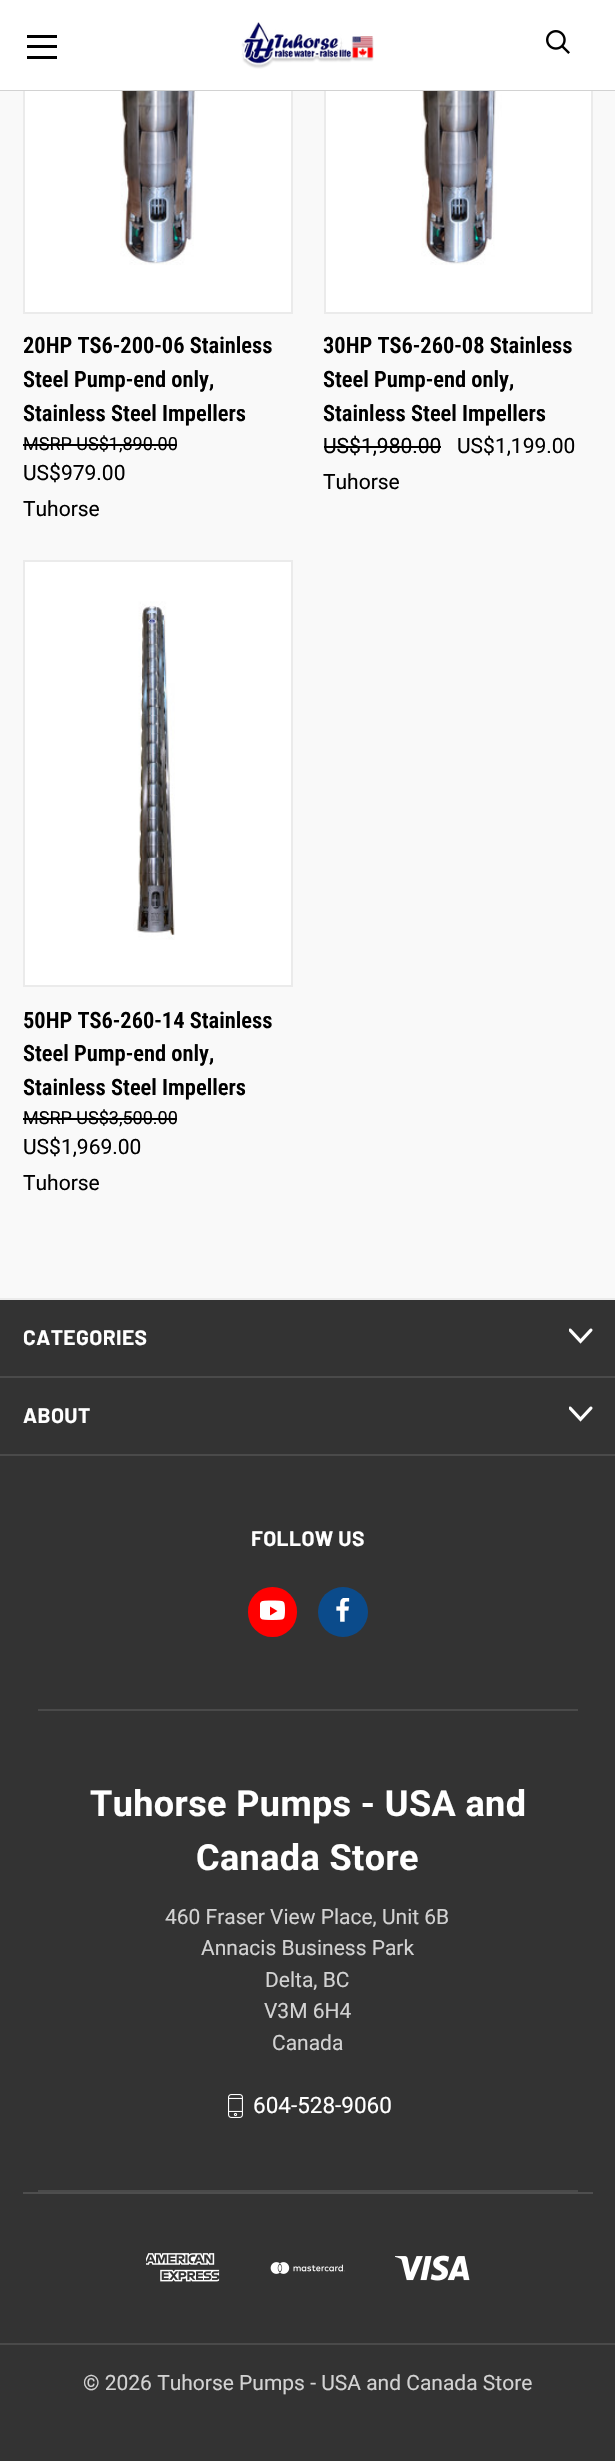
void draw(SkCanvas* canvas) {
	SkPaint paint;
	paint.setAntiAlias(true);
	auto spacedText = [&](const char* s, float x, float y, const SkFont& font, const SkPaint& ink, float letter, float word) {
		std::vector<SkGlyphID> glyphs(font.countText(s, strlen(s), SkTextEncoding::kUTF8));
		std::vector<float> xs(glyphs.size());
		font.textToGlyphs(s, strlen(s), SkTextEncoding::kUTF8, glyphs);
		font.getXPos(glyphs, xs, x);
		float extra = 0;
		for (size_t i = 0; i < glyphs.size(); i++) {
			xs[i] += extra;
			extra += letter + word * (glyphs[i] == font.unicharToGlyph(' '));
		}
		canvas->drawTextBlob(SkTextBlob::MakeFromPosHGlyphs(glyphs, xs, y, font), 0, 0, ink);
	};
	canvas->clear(0xfff9f9f9);
	paint.setColor(0xffffffff);
	canvas->drawRect(SkRect::MakeXYWH(25, 91, 266, 221), paint);
	paint.setStroke(true);
	paint.setStrokeWidth(2);
	paint.setColor(0xffebebeb);
	canvas->drawRect(SkRect::MakeXYWH(24, -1, 268, 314), paint);
	paint.setStroke(false);
	paint.setColor(0xffffffff);
	canvas->drawRect(SkRect::MakeXYWH(326, 91, 265, 221), paint);
	paint.setStroke(true);
	paint.setColor(0xffebebeb);
	canvas->drawRect(SkRect::MakeXYWH(325, -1, 267, 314), paint);
	paint.setStroke(false);
	paint.setColor(0xffffffff);
	canvas->drawRect(SkRect::MakeXYWH(0, 0, 615, 90), paint);
	canvas->drawImageRect(SkImages::DeferredFromEncodedData(SkData::MakeFromFileName("img1.png")), SkRect::MakeXYWH(241, 22, 133, 47), SkSamplingOptions());
	canvas->drawImageRect(SkImages::DeferredFromEncodedData(SkData::MakeFromFileName("img2.png")), SkRect::MakeXYWH(546, 30, 24, 24), SkSamplingOptions());
	paint.setColor(0xffd2d2d2);
	canvas->drawRect(SkRect::MakeXYWH(0, 90, 615, 1), paint);
	paint.setColor(0xff000000);
	canvas->drawRect(SkRect::MakeXYWH(27, 45, 30, 3), paint);
	canvas->drawRect(SkRect::MakeXYWH(27, 35, 30, 3), paint);
	canvas->drawRect(SkRect::MakeXYWH(27, 56, 30, 3), paint);
	canvas->drawImageRect(SkImages::DeferredFromEncodedData(SkData::MakeFromFileName("img3.png")), SkRect::MakeXYWH(120, 91, 78, 174), SkSamplingOptions());
	SkFont f1(fontMgr->matchFamilyStyle("Roboto Condensed", SkFontStyle(600, SkFontStyle::kNormal_Width, SkFontStyle::kUpright_Slant)), 22.5);
	f1.setSubpixel(true);
	canvas->drawString("20HP TS6-200-06 Stainless", 23, 353, f1, paint);
	canvas->drawString("Steel Pump-end only,", 23, 387, f1, paint);
	canvas->drawString("Stainless Steel Impellers", 23, 421, f1, paint);
	SkFont f2(fontMgr->matchFamilyStyle("Roboto", SkFontStyle::Normal()), 18);
	f2.setSubpixel(true);
	canvas->drawString("MSRP US$1,890.00", 23, 450, f2, paint);
	canvas->drawRect(SkRect::MakeXYWH(23, 444, 154, 2), paint);
	SkFont f3(fontMgr->matchFamilyStyle("Roboto", SkFontStyle::Normal()), 21);
	f3.setSubpixel(true);
	canvas->drawString("US$979.00", 23, 480, f3, paint);
	canvas->drawString("Tuhorse", 23, 516, f3, paint);
	canvas->drawImageRect(SkImages::DeferredFromEncodedData(SkData::MakeFromFileName("img4.png")), SkRect::MakeXYWH(421, 91, 81, 174), SkSamplingOptions());
	canvas->drawString("30HP TS6-260-08 Stainless", 323, 353, f1, paint);
	canvas->drawString("Steel Pump-end only,", 323, 387, f1, paint);
	canvas->drawString("Stainless Steel Impellers", 323, 421, f1, paint);
	canvas->drawString("US$1,980.00", 323, 453, f3, paint);
	canvas->drawRect(SkRect::MakeXYWH(324, 446, 117, 2), paint);
	canvas->drawString("US$1,199.00", 457, 453, f3, paint);
	canvas->drawString("Tuhorse", 323, 489, f3, paint);
	paint.setColor(0xffffffff);
	canvas->drawRect(SkRect::MakeXYWH(24, 561, 268, 425), paint);
	paint.setStroke(true);
	paint.setColor(0xffebebeb);
	canvas->drawRect(SkRect::MakeXYWH(24, 561, 268, 425), paint);
	canvas->drawImageRect(SkImages::DeferredFromEncodedData(SkData::MakeFromFileName("img5.png")), SkRect::MakeXYWH(133, 601, 42, 339), SkSamplingOptions());
	paint.setStroke(false);
	paint.setColor(0xff000000);
	canvas->drawString("50HP TS6-260-14 Stainless", 23, 1028, f1, paint);
	canvas->drawString("Steel Pump-end only,", 23, 1061, f1, paint);
	canvas->drawString("Stainless Steel Impellers", 23, 1095, f1, paint);
	canvas->drawString("MSRP US$3,500.00", 23, 1124, f2, paint);
	canvas->drawRect(SkRect::MakeXYWH(23, 1118, 154, 2), paint);
	canvas->drawString("US$1,969.00", 23, 1154, f3, paint);
	canvas->drawString("Tuhorse", 23, 1190, f3, paint);
	paint.setColor(0xff333333);
	canvas->drawRect(SkRect::MakeXYWH(0, 1300, 615, 1161), paint);
	paint.setColor(0xffebebeb);
	canvas->drawRect(SkRect::MakeXYWH(0, 1298, 615, 2), paint);
	paint.setColor(0xff4a4a4a);
	canvas->drawRect(SkRect::MakeXYWH(0, 1376, 615, 2), paint);
	SkFont f4(fontMgr->matchFamilyStyle("Barlow", SkFontStyle::Bold()), 21);
	f4.setSubpixel(true);
	paint.setColor(0xffffffff);
	spacedText("CATEGORIES", 23, 1345, f4, paint, 0.4, 0);
	canvas->drawImageRect(SkImages::DeferredFromEncodedData(SkData::MakeFromFileName("img6.png")), SkRect::MakeXYWH(569, 1328, 24, 16), SkSamplingOptions());
	paint.setColor(0xff4a4a4a);
	canvas->drawRect(SkRect::MakeXYWH(0, 1454, 615, 2), paint);
	paint.setColor(0xffffffff);
	spacedText("ABOUT", 23, 1423, f4, paint, 0.4, 0);
	canvas->drawImageRect(SkImages::DeferredFromEncodedData(SkData::MakeFromFileName("img6.png")), SkRect::MakeXYWH(569, 1406, 24, 16), SkSamplingOptions());
	paint.setColor(0xff4a4a4a);
	canvas->drawRect(SkRect::MakeXYWH(38, 1709, 540, 2), paint);
	paint.setColor(0xffffffff);
	spacedText("FOLLOW US", 251, 1546, f4, paint, 0.4, 0);
	paint.setColor(0xffff0000);
	canvas->drawRoundRect(SkRect::MakeXYWH(248, 1587, 49, 50), 24.5, 24.5, paint);
	canvas->drawImageRect(SkImages::DeferredFromEncodedData(SkData::MakeFromFileName("img7.png")), SkRect::MakeXYWH(260, 1600, 25, 20), SkSamplingOptions());
	paint.setColor(0xff0b4b8b);
	canvas->drawCircle(343, 1612, 25, paint);
	canvas->drawImageRect(SkImages::DeferredFromEncodedData(SkData::MakeFromFileName("img8.png")), SkRect::MakeXYWH(336, 1598, 14, 24), SkSamplingOptions());
	paint.setColor(0xff4a4a4a);
	canvas->drawRect(SkRect::MakeXYWH(38, 2190, 540, 2), paint);
	SkFont f5(fontMgr->matchFamilyStyle("Roboto", SkFontStyle::Bold()), 36);
	f5.setSubpixel(true);
	paint.setColor(0xffffffff);
	spacedText("Tuhorse Pumps - USA and", 90, 1816, f5, paint, 0.4, 0);
	spacedText("Canada Store", 196, 1870, f5, paint, 0.4, 0);
	paint.setColor(0xffd2d2d2);
	canvas->drawString("460 Fraser View Place, Unit 6B", 165, 1924, f3, paint);
	canvas->drawString("Annacis Business Park", 201, 1955, f3, paint);
	canvas->drawString("Delta, BC", 265, 1987, f3, paint);
	canvas->drawString("V3M 6H4", 264, 2018, f3, paint);
	canvas->drawString("Canada", 272, 2050, f3, paint);
	canvas->drawImageRect(SkImages::DeferredFromEncodedData(SkData::MakeFromFileName("img9.png")), SkRect::MakeXYWH(228, 2094, 15, 24), SkSamplingOptions());
	SkFont f6(fontMgr->matchFamilyStyle("Roboto", SkFontStyle::Normal()), 22.5);
	f6.setSubpixel(true);
	paint.setColor(0xffffffff);
	canvas->drawString("604-528-9060", 253, 2113, f6, paint);
	paint.setColor(0xff4e4e4e);
	canvas->drawRect(SkRect::MakeXYWH(23, 2192, 570, 2), paint);
	paint.setColor(0xff4a4a4a);
	canvas->drawRect(SkRect::MakeXYWH(0, 2343, 615, 2), paint);
	canvas->drawImageRect(SkImages::DeferredFromEncodedData(SkData::MakeFromFileName("img10.png")), SkRect::MakeXYWH(146, 2253, 74, 29), SkSamplingOptions());
	canvas->drawImageRect(SkImages::DeferredFromEncodedData(SkData::MakeFromFileName("img11.png")), SkRect::MakeXYWH(270, 2262, 75, 12), SkSamplingOptions());
	canvas->drawImageRect(SkImages::DeferredFromEncodedData(SkData::MakeFromFileName("img12.png")), SkRect::MakeXYWH(395, 2255, 75, 26), SkSamplingOptions());
	paint.setColor(0xffd2d2d2);
	canvas->drawString("© 2026 Tuhorse Pumps - USA and Canada Store", 83, 2390, f3, paint);
}
